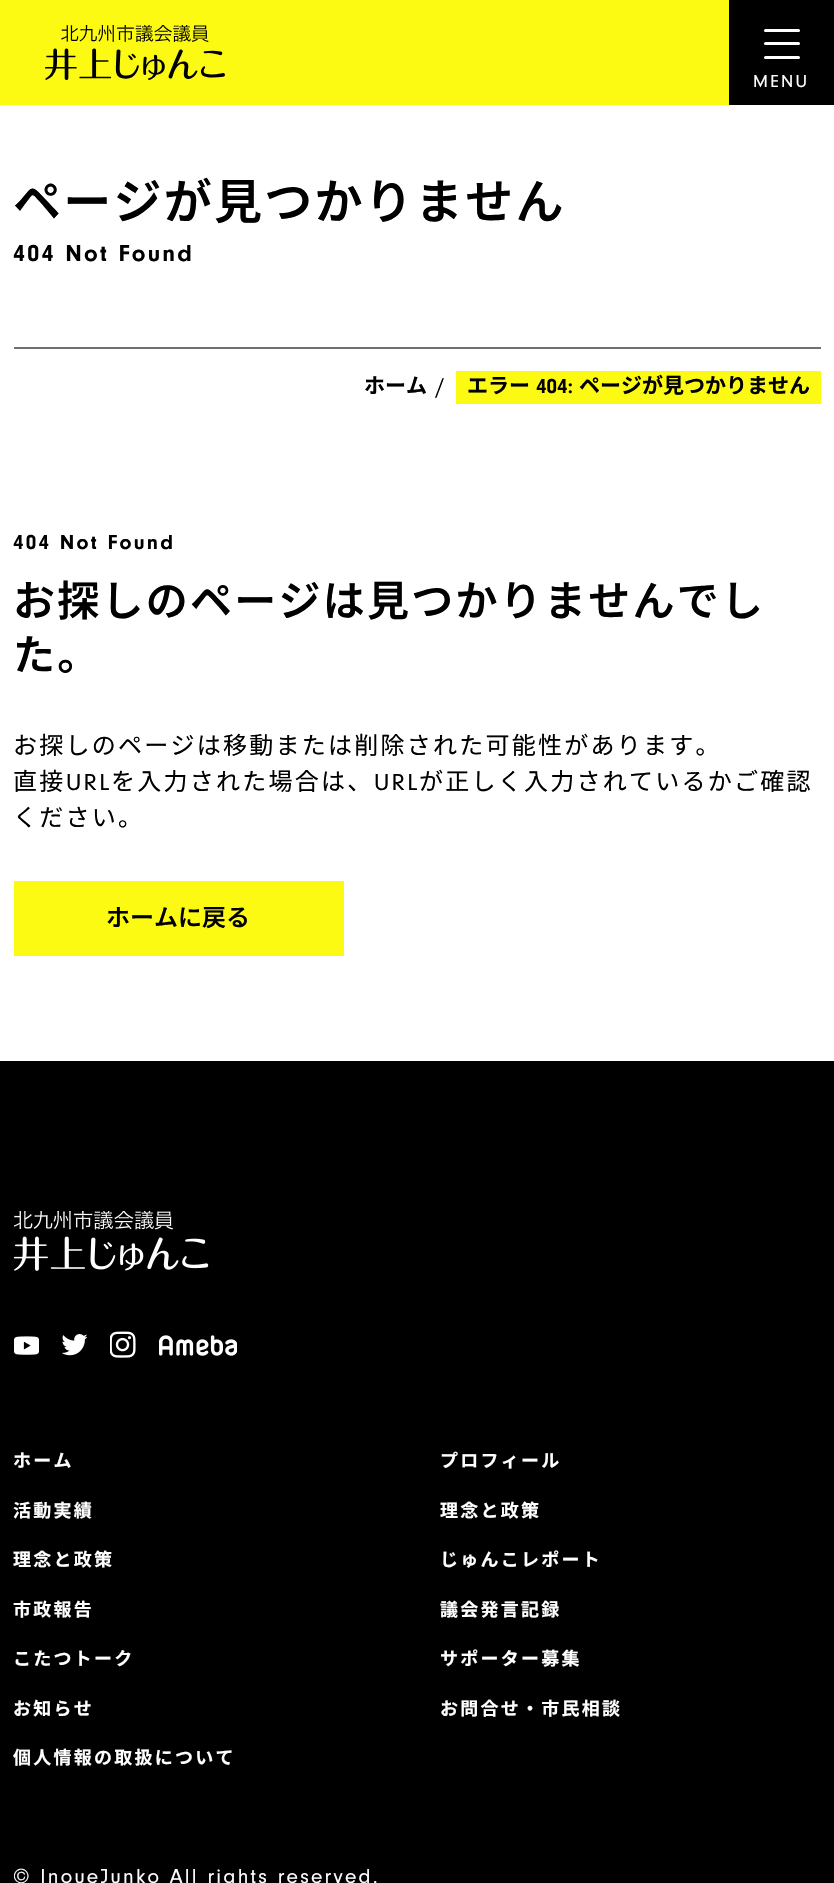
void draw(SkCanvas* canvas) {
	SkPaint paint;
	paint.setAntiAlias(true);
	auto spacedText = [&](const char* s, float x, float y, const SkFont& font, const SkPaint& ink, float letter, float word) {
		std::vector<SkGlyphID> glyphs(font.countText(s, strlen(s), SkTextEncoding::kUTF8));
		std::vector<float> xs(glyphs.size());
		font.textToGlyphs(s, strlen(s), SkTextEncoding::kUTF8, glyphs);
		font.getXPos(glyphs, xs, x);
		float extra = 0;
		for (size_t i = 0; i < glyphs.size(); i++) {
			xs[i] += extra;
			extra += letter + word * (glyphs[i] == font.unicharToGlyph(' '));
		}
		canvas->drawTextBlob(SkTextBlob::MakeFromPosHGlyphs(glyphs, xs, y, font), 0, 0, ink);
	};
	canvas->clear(0xffffffff);
	paint.setColor(0xfffcf912);
	canvas->drawRect(SkRect::MakeXYWH(0, 0, 729, 105), paint);
	canvas->drawImageRect(SkImages::DeferredFromEncodedData(SkData::MakeFromFileName("img1.png")), SkRect::MakeXYWH(45, 25, 180, 55), SkSamplingOptions());
	paint.setColor(0xff000000);
	canvas->drawRect(SkRect::MakeXYWH(729, 0, 105, 105), paint);
	paint.setColor(0xffffffff);
	canvas->drawRoundRect(SkRect::MakeXYWH(764, 29, 36, 3), 1.5, 1.5, paint);
	canvas->drawRoundRect(SkRect::MakeXYWH(764, 42, 36, 3), 1.5, 1.5, paint);
	canvas->drawRoundRect(SkRect::MakeXYWH(764, 56, 36, 3), 1.5, 1.5, paint);
	SkFont f1(fontMgr->matchFamilyStyle("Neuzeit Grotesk", SkFontStyle::Normal()), 18);
	f1.setSubpixel(true);
	spacedText("MENU", 753, 87, f1, paint, 2.25, 0);
	paint.setColor(0xff707070);
	canvas->drawRect(SkRect::MakeXYWH(14, 347, 807, 2), paint);
	SkFont f2(fontMgr->matchFamilyStyle("Noto Sans JP", SkFontStyle(600, SkFontStyle::kNormal_Width, SkFontStyle::kUpright_Slant)), 48);
	f2.setSubpixel(true);
	paint.setColor(0xff000000);
	spacedText("ページが見つかりません", 13, 219, f2, paint, 2.25, 0);
	SkFont f3(fontMgr->matchFamilyStyle("Neuzeit Grotesk", SkFontStyle::Bold()), 24);
	f3.setSubpixel(true);
	spacedText("404 Not Found", 13, 261, f3, paint, 2.25, 0);
	SkFont f4(fontMgr->matchFamilyStyle("Noto Sans JP", SkFontStyle::Bold()), 21);
	f4.setSubpixel(true);
	canvas->drawString("ホーム", 364, 393, f4, paint);
	SkFont f5(fontMgr->matchFamilyStyle("Neuzeit Grotesk", SkFontStyle::Normal()), 22);
	f5.setSubpixel(true);
	spacedText("/", 436, 393, f5, paint, 2.25, 0);
	paint.setColor(0xfffcf912);
	canvas->drawRect(SkRect::MakeXYWH(456, 371, 365, 33), paint);
	paint.setColor(0xff000000);
	canvas->drawString("エラー", 467, 393, f4, paint);
	SkFont f6(fontMgr->matchFamilyStyle("Neuzeit Grotesk", SkFontStyle::Bold()), 21);
	f6.setSubpixel(true);
	canvas->drawString("404:", 536, 393, f6, paint);
	canvas->drawString("ページが見つかりません", 579, 393, f4, paint);
	spacedText("404 Not Found", 13, 549, f6, paint, 2.25, 0);
	SkFont f7(fontMgr->matchFamilyStyle("Noto Sans JP", SkFontStyle(600, SkFontStyle::kNormal_Width, SkFontStyle::kUpright_Slant)), 42);
	f7.setSubpixel(true);
	spacedText("お探しのページは見つかりませんでし", 13, 616, f7, paint, 2.25, 0);
	spacedText("た。", 13, 670, f7, paint, 2.25, 0);
	SkFont f8(fontMgr->matchFamilyStyle("Noto Sans JP", SkFontStyle::Normal()), 24);
	f8.setSubpixel(true);
	spacedText("お探しのページは移動または削除された可能性があります。", 13, 754, f8, paint, 2.25, 0);
	spacedText("直接", 13, 790, f8, paint, 2.25, 0);
	SkFont f9(fontMgr->matchFamilyStyle("Neuzeit Grotesk", SkFontStyle::Normal()), 24);
	f9.setSubpixel(true);
	spacedText("URL", 66, 790, f9, paint, 2.25, 0);
	spacedText("を入力された場合は、", 111, 790, f8, paint, 2.25, 0);
	spacedText("URL", 374, 790, f9, paint, 2.25, 0);
	spacedText("が正しく入力されているかご確認", 419, 790, f8, paint, 2.25, 0);
	spacedText("ください。", 13, 826, f8, paint, 2.25, 0);
	paint.setColor(0xfffcf912);
	canvas->drawRect(SkRect::MakeXYWH(14, 881, 330, 75), paint);
	SkFont f10(fontMgr->matchFamilyStyle("Noto Sans JP", SkFontStyle(600, SkFontStyle::kNormal_Width, SkFontStyle::kUpright_Slant)), 24);
	f10.setSubpixel(true);
	paint.setColor(0xff000000);
	canvas->drawString("ホームに戻る", 106, 926, f10, paint);
	canvas->drawRect(SkRect::MakeXYWH(0, 1061, 834, 822), paint);
	canvas->drawImageRect(SkImages::DeferredFromEncodedData(SkData::MakeFromFileName("img2.png")), SkRect::MakeXYWH(14, 1211, 195, 60), SkSamplingOptions());
	canvas->drawImageRect(SkImages::DeferredFromEncodedData(SkData::MakeFromFileName("img3.png")), SkRect::MakeXYWH(14, 1336, 25, 19), SkSamplingOptions());
	canvas->drawImageRect(SkImages::DeferredFromEncodedData(SkData::MakeFromFileName("img4.png")), SkRect::MakeXYWH(62, 1334, 25, 22), SkSamplingOptions());
	canvas->drawImageRect(SkImages::DeferredFromEncodedData(SkData::MakeFromFileName("img5.png")), SkRect::MakeXYWH(110, 1331, 26, 27), SkSamplingOptions());
	canvas->drawImageRect(SkImages::DeferredFromEncodedData(SkData::MakeFromFileName("img6.png")), SkRect::MakeXYWH(159, 1335, 78, 21), SkSamplingOptions());
	SkFont f11(fontMgr->matchFamilyStyle("Noto Sans JP", SkFontStyle::Bold()), 18);
	f11.setSubpixel(true);
	paint.setColor(0xffffffff);
	spacedText("ホーム", 13, 1467, f11, paint, 2.25, 0);
	spacedText("活動実績", 13, 1517, f11, paint, 2.25, 0);
	spacedText("理念と政策", 13, 1566, f11, paint, 2.25, 0);
	spacedText("市政報告", 13, 1616, f11, paint, 2.25, 0);
	spacedText("こたつトーク", 13, 1665, f11, paint, 2.25, 0);
	spacedText("お知らせ", 13, 1715, f11, paint, 2.25, 0);
	spacedText("個人情報の取扱について", 13, 1764, f11, paint, 2.25, 0);
	spacedText("プロフィール", 440, 1467, f11, paint, 2.25, 0);
	spacedText("理念と政策", 440, 1517, f11, paint, 2.25, 0);
	spacedText("じゅんこレポート", 440, 1566, f11, paint, 2.25, 0);
	spacedText("議会発言記録", 440, 1616, f11, paint, 2.25, 0);
	spacedText("サポーター募集", 440, 1665, f11, paint, 2.25, 0);
	spacedText("お問合せ・市民相談", 440, 1715, f11, paint, 2.25, 0);
	SkFont f12(fontMgr->matchFamilyStyle("Neuzeit Grotesk", SkFontStyle::Normal()), 21);
	f12.setSubpixel(true);
	spacedText("© InoueJunko All rights reserved.", 13, 1883, f12, paint, 2.25, 0);
}
